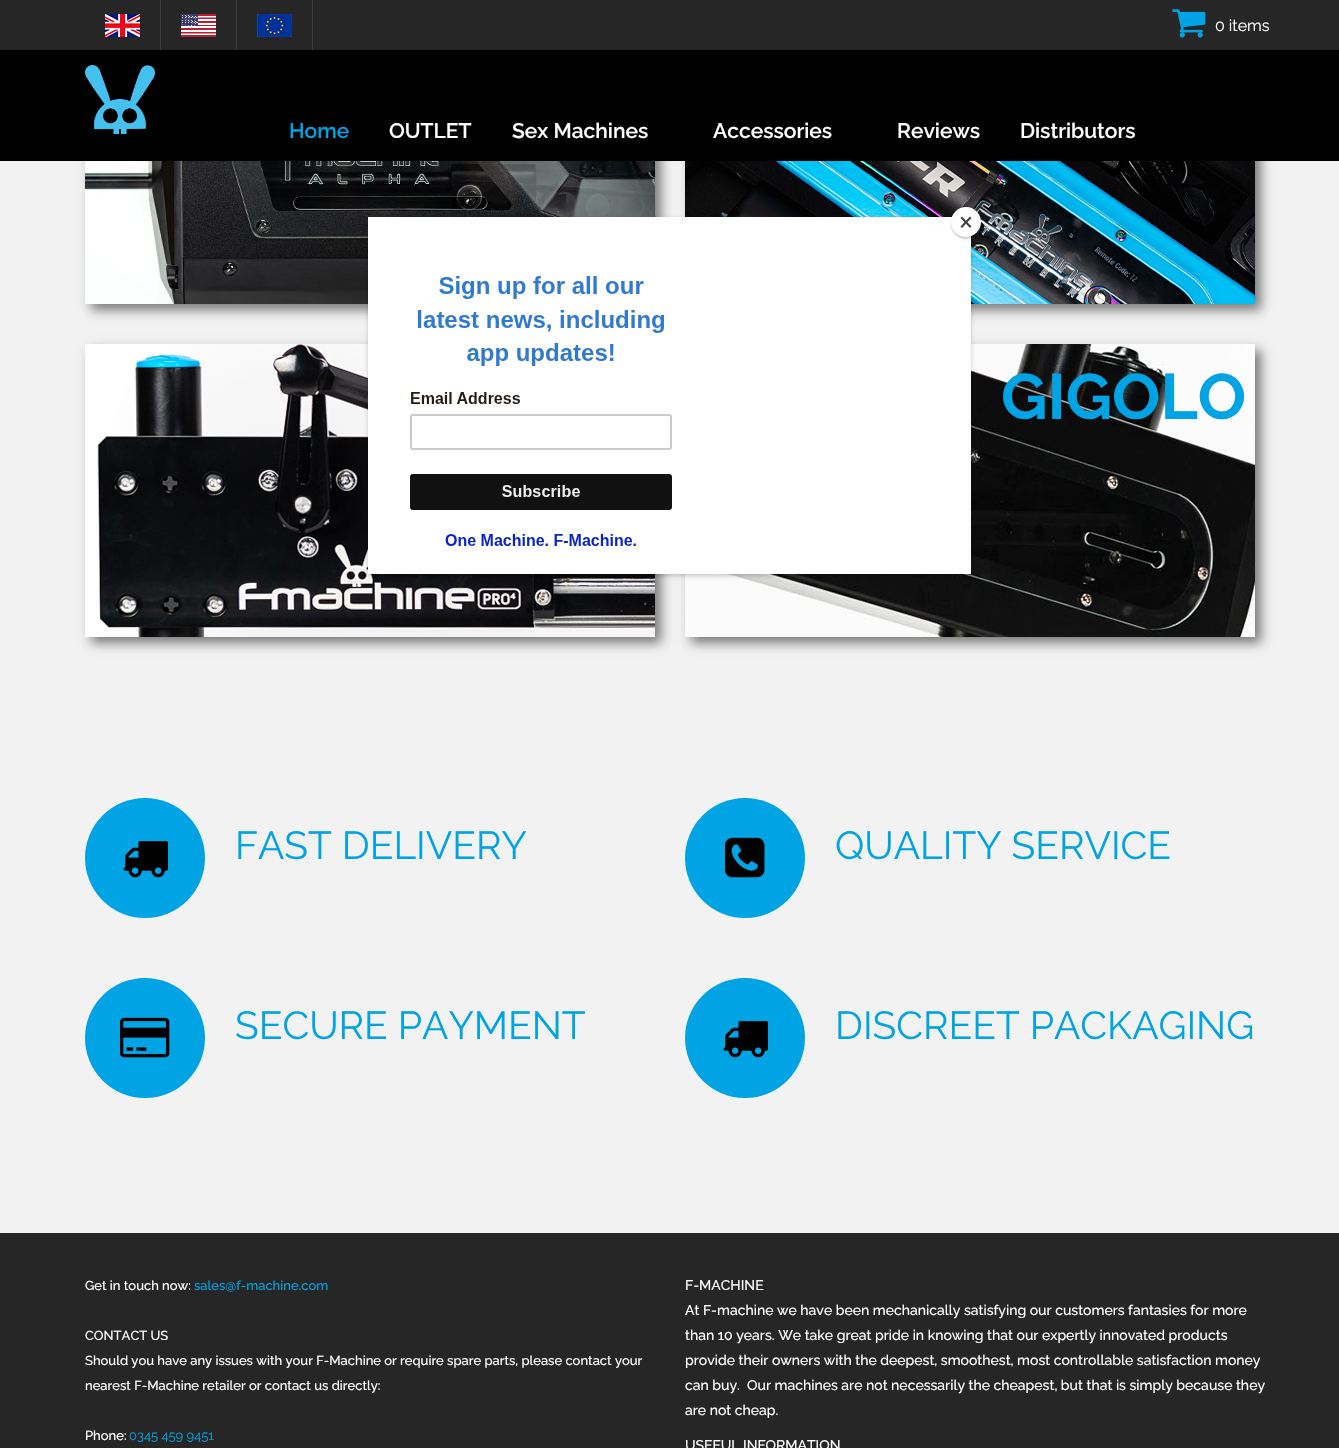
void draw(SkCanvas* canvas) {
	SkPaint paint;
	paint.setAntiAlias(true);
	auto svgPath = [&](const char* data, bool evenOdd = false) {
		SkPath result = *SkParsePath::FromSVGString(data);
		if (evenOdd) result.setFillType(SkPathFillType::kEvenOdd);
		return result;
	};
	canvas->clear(0xff000000);
	paint.setColor(0xfff2f2f2);
	canvas->drawRect(SkRect::MakeXYWH(0, 161, 1339, 1072), paint);
	canvas->save();
	canvas->clipRect(SkRect::MakeXYWH(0, 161, 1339, 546));
	paint.setColor(0x80000000);
	paint.setMaskFilter(SkMaskFilter::MakeBlur(kNormal_SkBlurStyle, 5.5));
	canvas->drawRect(SkRect::MakeXYWH(91, 17, 570, 293), paint);
	paint.setMaskFilter(nullptr);
	paint.setMaskFilter(SkMaskFilter::MakeBlur(kNormal_SkBlurStyle, 5.5));
	canvas->drawRect(SkRect::MakeXYWH(691, 17, 570, 293), paint);
	paint.setMaskFilter(nullptr);
	canvas->restore();
	paint.setColor(0xff262626);
	canvas->drawRect(SkRect::MakeXYWH(0, 0, 1339, 50), paint);
	paint.setColor(0xff3c3c3c);
	canvas->drawRect(SkRect::MakeXYWH(160, 0, 1, 50), paint);
	canvas->drawImageRect(SkImages::DeferredFromEncodedData(SkData::MakeFromFileName("img1.png")), SkRect::MakeXYWH(105, 14, 35, 23), SkSamplingOptions());
	canvas->drawRect(SkRect::MakeXYWH(236, 0, 1, 50), paint);
	canvas->drawImageRect(SkImages::DeferredFromEncodedData(SkData::MakeFromFileName("img2.png")), SkRect::MakeXYWH(181, 14, 35, 23), SkSamplingOptions());
	canvas->drawRect(SkRect::MakeXYWH(312, 0, 1, 50), paint);
	canvas->drawImageRect(SkImages::DeferredFromEncodedData(SkData::MakeFromFileName("img3.png")), SkRect::MakeXYWH(257, 14, 35, 23), SkSamplingOptions());
	canvas->drawImageRect(SkImages::DeferredFromEncodedData(SkData::MakeFromFileName("img4.png")), SkRect::MakeXYWH(1172, 9, 34, 29), SkSamplingOptions());
	SkFont f1(fontMgr->matchFamilyStyle("Raleway", SkFontStyle::Normal()), 16);
	f1.setSubpixel(true);
	paint.setColor(0xffffffff);
	canvas->drawString("0 items", 1215, 31, f1, paint);
	canvas->drawImageRect(SkImages::DeferredFromEncodedData(SkData::MakeFromFileName("img5.png")), SkRect::MakeXYWH(85, 65, 70, 69), SkSamplingOptions());
	SkFont f2(fontMgr->matchFamilyStyle("Raleway", SkFontStyle(600, SkFontStyle::kNormal_Width, SkFontStyle::kUpright_Slant)), 21);
	f2.setSubpixel(true);
	paint.setColor(0xff00a3e3);
	canvas->drawString("Home", 289, 138, f2, paint);
	paint.setColor(0xffffffff);
	canvas->drawString("OUTLET", 389, 138, f2, paint);
	canvas->drawString("Sex Machines", 512, 138, f2, paint);
	canvas->drawString("Accessories", 713, 138, f2, paint);
	canvas->drawString("Reviews", 897, 138, f2, paint);
	canvas->drawString("Distributors", 1020, 138, f2, paint);
	canvas->drawImageRect(SkImages::DeferredFromEncodedData(SkData::MakeFromFileName("img6.png")), SkRect::MakeXYWH(85, 161, 570, 143), SkSamplingOptions());
	canvas->drawImageRect(SkImages::DeferredFromEncodedData(SkData::MakeFromFileName("img7.png")), SkRect::MakeXYWH(685, 161, 570, 143), SkSamplingOptions());
	paint.setColor(0x80000000);
	paint.setMaskFilter(SkMaskFilter::MakeBlur(kNormal_SkBlurStyle, 5.5));
	canvas->drawRect(SkRect::MakeXYWH(91, 350, 570, 293), paint);
	paint.setMaskFilter(nullptr);
	canvas->drawImageRect(SkImages::DeferredFromEncodedData(SkData::MakeFromFileName("img8.png")), SkRect::MakeXYWH(85, 344, 570, 293), SkSamplingOptions());
	paint.setMaskFilter(SkMaskFilter::MakeBlur(kNormal_SkBlurStyle, 5.5));
	canvas->drawRect(SkRect::MakeXYWH(691, 350, 570, 293), paint);
	paint.setMaskFilter(nullptr);
	canvas->drawImageRect(SkImages::DeferredFromEncodedData(SkData::MakeFromFileName("img9.png")), SkRect::MakeXYWH(685, 344, 570, 293), SkSamplingOptions());
	SkFont f3(fontMgr->matchFamilyStyle("Raleway", SkFontStyle::Bold()), 64);
	f3.setSubpixel(true);
	paint.setColor(0xff00a3e3);
	canvas->drawString("GIGOLO", 1001, 419, f3, paint);
	canvas->drawCircle(145, 858, 60, paint);
	canvas->drawImageRect(SkImages::DeferredFromEncodedData(SkData::MakeFromFileName("img10.png")), SkRect::MakeXYWH(123, 841, 45, 37), SkSamplingOptions());
	SkFont f4(fontMgr->matchFamilyStyle("Raleway", SkFontStyle::Normal()), 39);
	f4.setSubpixel(true);
	canvas->drawString("FAST DELIVERY", 235, 859, f4, paint);
	canvas->drawCircle(145, 1038, 60, paint);
	canvas->drawImageRect(SkImages::DeferredFromEncodedData(SkData::MakeFromFileName("img11.png")), SkRect::MakeXYWH(120, 1017, 50, 41), SkSamplingOptions());
	canvas->drawString("SECURE PAYMENT", 235, 1039, f4, paint);
	canvas->drawCircle(745, 858, 60, paint);
	canvas->drawImageRect(SkImages::DeferredFromEncodedData(SkData::MakeFromFileName("img12.png")), SkRect::MakeXYWH(725, 837, 40, 41), SkSamplingOptions());
	canvas->drawString("QUALITY SERVICE", 835, 859, f4, paint);
	canvas->drawCircle(745, 1038, 60, paint);
	canvas->drawImageRect(SkImages::DeferredFromEncodedData(SkData::MakeFromFileName("img10.png")), SkRect::MakeXYWH(723, 1021, 45, 37), SkSamplingOptions());
	canvas->drawString("DISCREET PACKAGING", 835, 1039, f4, paint);
	paint.setColor(0xff262626);
	canvas->drawRect(SkRect::MakeXYWH(0, 1233, 1339, 215), paint);
	SkFont f5(fontMgr->matchFamilyStyle("Raleway", SkFontStyle(500, SkFontStyle::kNormal_Width, SkFontStyle::kUpright_Slant)), 13);
	f5.setSubpixel(true);
	paint.setColor(0xffffffff);
	canvas->drawString("Get in touch now:", 85, 1290, f5, paint);
	paint.setColor(0xff00a3e3);
	canvas->drawString("sales@f-machine.com", 194, 1290, f5, paint);
	paint.setColor(0xffffffff);
	canvas->drawString("CONTACT US", 85, 1340, f5, paint);
	canvas->drawString("Should you have any issues with your F-Machine or require spare parts, please contact your", 85, 1365, f5, paint);
	canvas->drawString("nearest F-Machine retailer or contact us directly:", 85, 1390, f5, paint);
	canvas->drawString("Phone:", 85, 1440, f5, paint);
	SkFont f6(fontMgr->matchFamilyStyle("Raleway", SkFontStyle::Normal()), 13);
	f6.setSubpixel(true);
	paint.setColor(0xff00a3e3);
	canvas->drawString("0345 459 9451", 129, 1440, f6, paint);
	SkFont f7(fontMgr->matchFamilyStyle("Raleway", SkFontStyle(500, SkFontStyle::kNormal_Width, SkFontStyle::kUpright_Slant)), 14);
	f7.setSubpixel(true);
	paint.setColor(0xffffffff);
	canvas->drawString("F-MACHINE", 685, 1290, f7, paint);
	canvas->drawString("At F-machine we have been mechanically satisfying our customers fantasies for more", 685, 1315, f7, paint);
	canvas->drawString("than 10 years. We take great pride in knowing that our expertly innovated products", 685, 1340, f7, paint);
	canvas->drawString("provide their owners with the deepest, smoothest, most controllable satisfaction money", 685, 1365, f7, paint);
	canvas->drawString("can buy.  Our machines are not necessarily the cheapest, but that is simply because they", 685, 1390, f7, paint);
	canvas->drawString("are not cheap.", 685, 1415, f7, paint);
	canvas->drawString("USEFUL INFORMATION", 685, 1450, f7, paint);
	paint.setColor(0x33000000);
	paint.setMaskFilter(SkMaskFilter::MakeBlur(kNormal_SkBlurStyle, 2));
	canvas->drawRect(SkRect::MakeXYWH(368, 219, 603, 357), paint);
	paint.setMaskFilter(nullptr);
	canvas->drawImageRect(SkImages::DeferredFromEncodedData(SkData::MakeFromFileName("img13.png")), SkRect::MakeXYWH(368, 217, 603, 357), SkSamplingOptions());
	paint.setMaskFilter(SkMaskFilter::MakeBlur(kNormal_SkBlurStyle, 1));
	canvas->drawRoundRect(SkRect::MakeXYWH(951, 209, 30, 30), 15, 15, paint);
	paint.setMaskFilter(nullptr);
	paint.setColor(0xffffffff);
	canvas->drawCircle(966, 222, 15, paint);
	paint.setColor(0xff414141);
	canvas->drawPath(svgPath("M970 216.5L971.5 218L962 228L960.5 226.5Z"), paint);
	canvas->drawPath(svgPath("M960.5 218L962 216.5L971.5 226.5L970 228Z"), paint);
}
